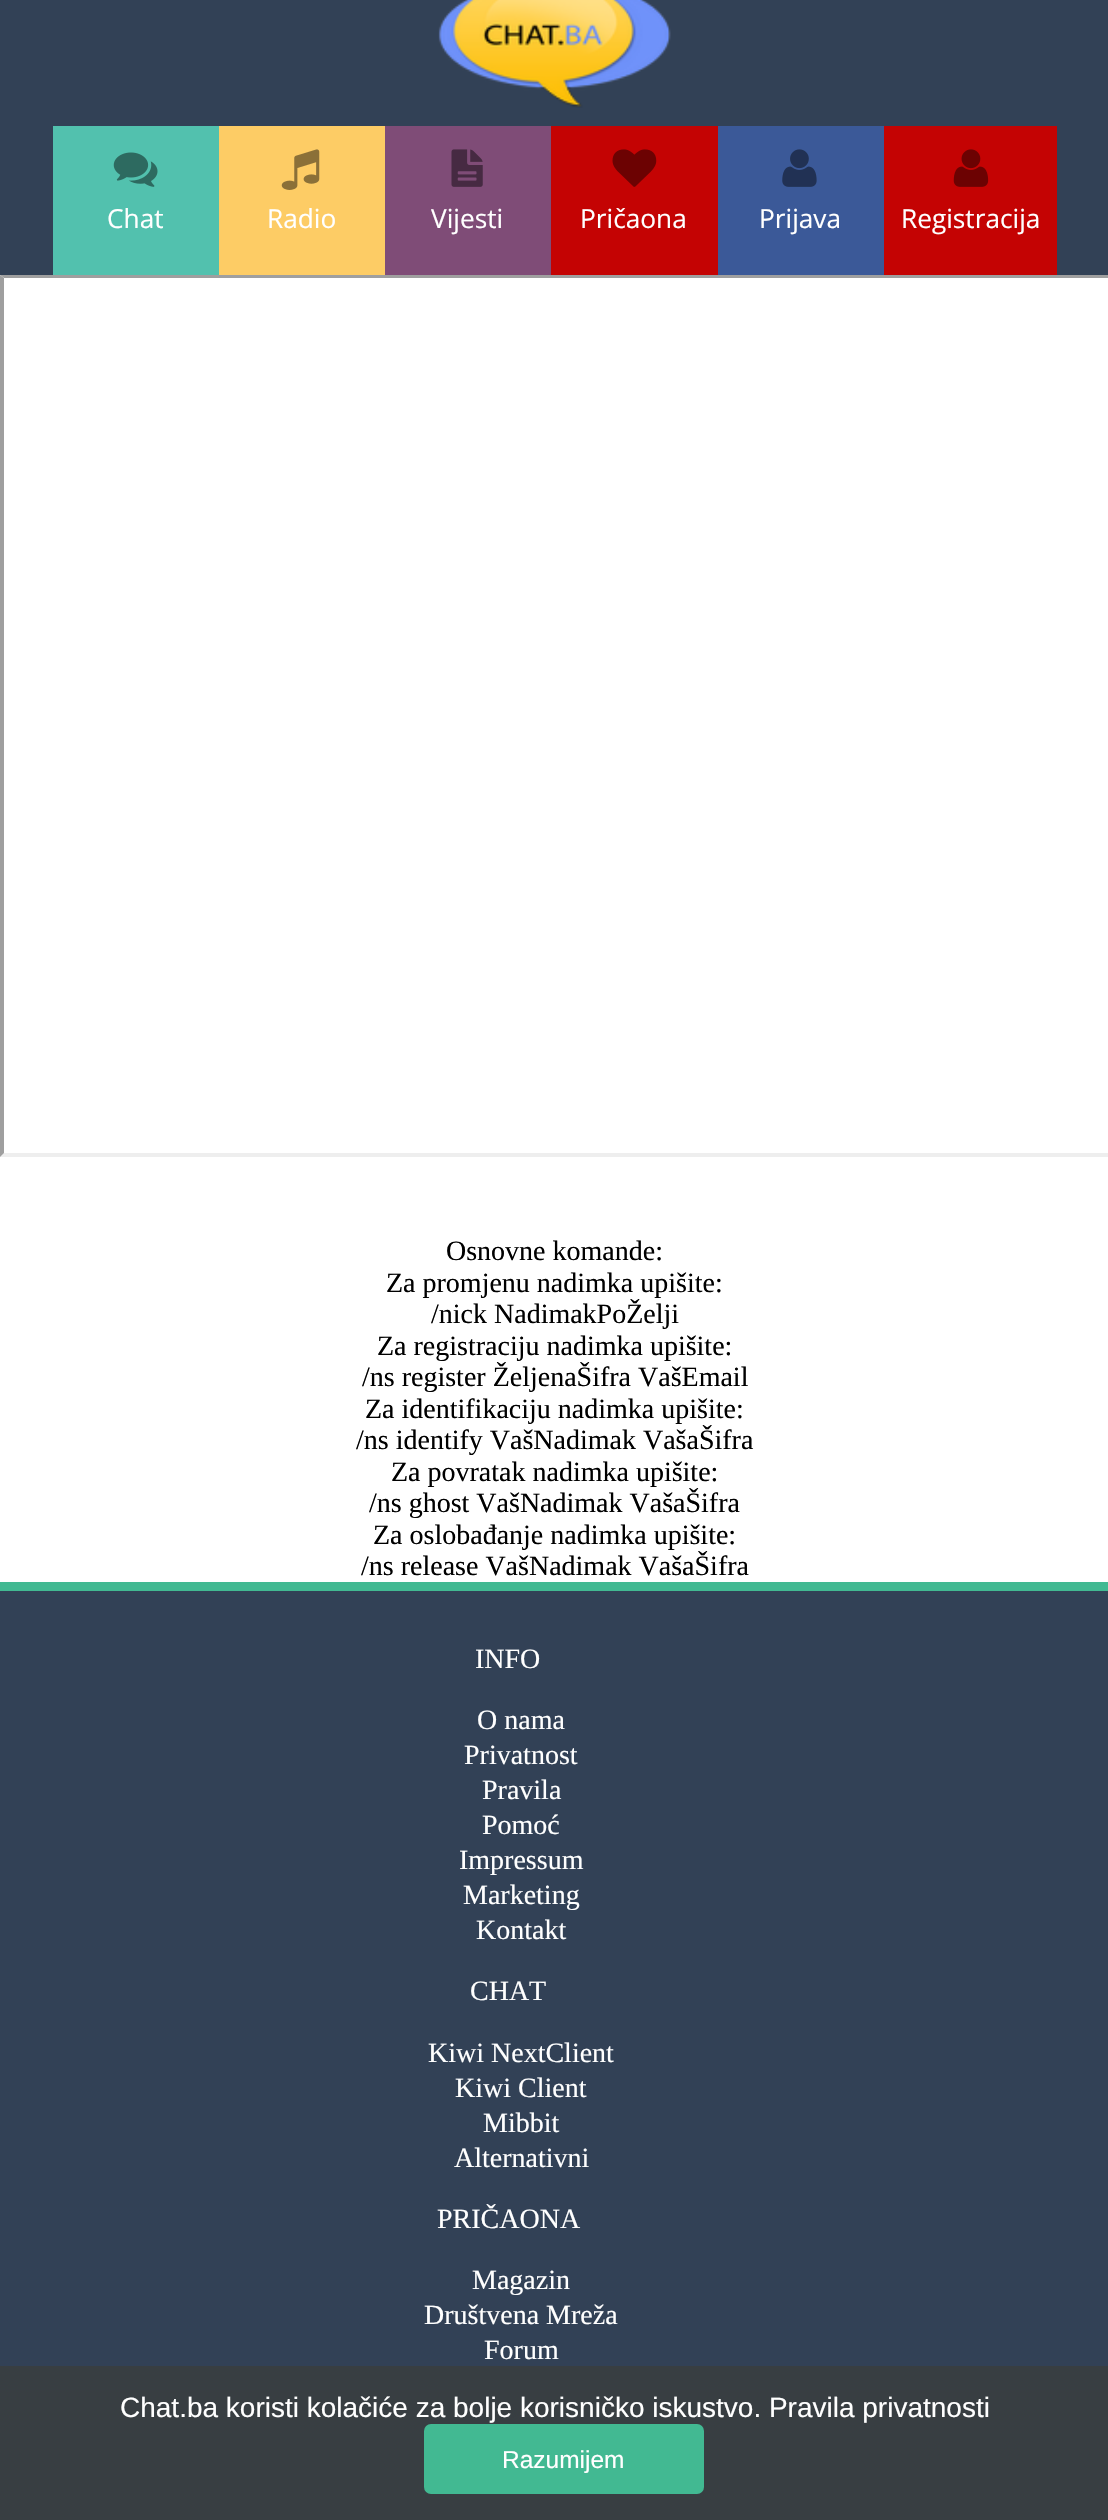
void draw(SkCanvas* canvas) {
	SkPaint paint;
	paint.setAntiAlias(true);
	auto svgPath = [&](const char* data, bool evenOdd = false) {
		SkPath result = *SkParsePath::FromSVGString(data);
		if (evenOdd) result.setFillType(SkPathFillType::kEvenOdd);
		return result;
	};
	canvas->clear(0xffffffff);
	paint.setColor(0xff324156);
	canvas->drawRect(SkRect::MakeXYWH(0, 0, 1108, 275), paint);
	canvas->drawImageRect(SkImages::DeferredFromEncodedData(SkData::MakeFromFileName("img1.png")), SkRect::MakeXYWH(438, 0, 233, 108), SkSamplingOptions());
	paint.setColor(0xff52c1ae);
	canvas->drawRect(SkRect::MakeXYWH(53, 126, 166, 149), paint);
	canvas->drawImageRect(SkImages::DeferredFromEncodedData(SkData::MakeFromFileName("img2.png")), SkRect::MakeXYWH(113, 152, 45, 35), SkSamplingOptions());
	SkFont f1(fontMgr->matchFamilyStyle("Open Sans", SkFontStyle::Normal()), 26.25);
	f1.setSubpixel(true);
	paint.setColor(0xffffffff);
	canvas->drawString("Chat", 107, 228, f1, paint);
	paint.setColor(0xfffdcc65);
	canvas->drawRect(SkRect::MakeXYWH(219, 126, 166, 149), paint);
	canvas->drawImageRect(SkImages::DeferredFromEncodedData(SkData::MakeFromFileName("img3.png")), SkRect::MakeXYWH(281, 149, 39, 41), SkSamplingOptions());
	paint.setColor(0xffffffff);
	canvas->drawString("Radio", 267, 228, f1, paint);
	paint.setColor(0xff7f4c77);
	canvas->drawRect(SkRect::MakeXYWH(385, 126, 166, 149), paint);
	canvas->drawImageRect(SkImages::DeferredFromEncodedData(SkData::MakeFromFileName("img4.png")), SkRect::MakeXYWH(451, 149, 32, 38), SkSamplingOptions());
	paint.setColor(0xffffffff);
	canvas->drawString("Vijesti", 431, 228, f1, paint);
	paint.setColor(0xffc40303);
	canvas->drawRect(SkRect::MakeXYWH(551, 126, 167, 149), paint);
	canvas->drawImageRect(SkImages::DeferredFromEncodedData(SkData::MakeFromFileName("img5.png")), SkRect::MakeXYWH(612, 149, 45, 38), SkSamplingOptions());
	paint.setColor(0xffffffff);
	canvas->drawString("Pričaona", 580, 228, f1, paint);
	paint.setColor(0xff3b5998);
	canvas->drawRect(SkRect::MakeXYWH(718, 126, 166, 149), paint);
	canvas->drawImageRect(SkImages::DeferredFromEncodedData(SkData::MakeFromFileName("img6.png")), SkRect::MakeXYWH(782, 149, 35, 38), SkSamplingOptions());
	paint.setColor(0xffffffff);
	canvas->drawString("Prijava", 759, 228, f1, paint);
	paint.setColor(0xffc40303);
	canvas->drawRect(SkRect::MakeXYWH(884, 126, 173, 149), paint);
	canvas->drawImageRect(SkImages::DeferredFromEncodedData(SkData::MakeFromFileName("img7.png")), SkRect::MakeXYWH(953, 149, 36, 38), SkSamplingOptions());
	paint.setColor(0xffffffff);
	canvas->drawString("Registracija", 901, 228, f1, paint);
	paint.setColor(0xff9f9f9f);
	canvas->drawPath(svgPath("M0 275H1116L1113 278H4Z"), paint);
	paint.setColor(0xffeeeeee);
	canvas->drawPath(svgPath("M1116 1157H0L4 1153H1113Z"), paint);
	paint.setColor(0xff9f9f9f);
	canvas->drawPath(svgPath("M0 1157V275L4 278V1153Z"), paint);
	SkFont f2(fontMgr->matchFamilyStyle("Liberation Serif", SkFontStyle::Normal()), 28);
	f2.setSubpixel(true);
	paint.setColor(0xff000000);
	canvas->drawString("Osnovne komande:", 446, 1260, f2, paint);
	canvas->drawString("Za promjenu nadimka upišite:", 386, 1292, f2, paint);
	canvas->drawString("/nick NadimakPoŽelji", 431, 1323, f2, paint);
	canvas->drawString("Za registraciju nadimka upišite:", 377, 1355, f2, paint);
	canvas->drawString("/ns register ŽeljenaŠifra VašEmail", 362, 1386, f2, paint);
	canvas->drawString("Za identifikaciju nadimka upišite:", 365, 1418, f2, paint);
	canvas->drawString("/ns identify VašNadimak VašaŠifra", 356, 1449, f2, paint);
	canvas->drawString("Za povratak nadimka upišite:", 391, 1481, f2, paint);
	canvas->drawString("/ns ghost VašNadimak VašaŠifra", 369, 1512, f2, paint);
	canvas->drawString("Za oslobađanje nadimka upišite:", 373, 1544, f2, paint);
	canvas->drawString("/ns release VašNadimak VašaŠifra", 361, 1575, f2, paint);
	paint.setColor(0xff324156);
	canvas->drawRect(SkRect::MakeXYWH(0, 1591, 1108, 775), paint);
	paint.setColor(0xff42b992);
	canvas->drawRect(SkRect::MakeXYWH(0, 1582, 1108, 9), paint);
	paint.setColor(0xffffffff);
	canvas->drawString("INFO", 475, 1668, f2, paint);
	canvas->drawString("O nama", 477, 1729, f2, paint);
	canvas->drawString("Privatnost", 464, 1764, f2, paint);
	canvas->drawString("Pravila", 482, 1799, f2, paint);
	canvas->drawString("Pomoć", 482, 1834, f2, paint);
	canvas->drawString("Impressum", 459, 1869, f2, paint);
	canvas->drawString("Marketing", 463, 1904, f2, paint);
	canvas->drawString("Kontakt", 476, 1939, f2, paint);
	canvas->drawString("CHAT", 470, 2000, f2, paint);
	canvas->drawString("Kiwi NextClient", 428, 2062, f2, paint);
	canvas->drawString("Kiwi Client", 455, 2097, f2, paint);
	canvas->drawString("Mibbit", 483, 2132, f2, paint);
	canvas->drawString("Alternativni", 454, 2167, f2, paint);
	canvas->drawString("PRIČAONA", 437, 2228, f2, paint);
	canvas->drawString("Magazin", 472, 2289, f2, paint);
	canvas->drawString("Društvena Mreža", 424, 2324, f2, paint);
	canvas->drawString("Forum", 484, 2359, f2, paint);
	paint.setColor(0xff383e42);
	canvas->drawRect(SkRect::MakeXYWH(0, 2366, 1108, 154), paint);
	SkFont f3(fontMgr->matchFamilyStyle("Liberation Sans", SkFontStyle::Normal()), 28);
	f3.setSubpixel(true);
	paint.setColor(0xffffffff);
	canvas->drawString("Chat.ba koristi kolačiće za bolje korisničko iskustvo. Pravila privatnosti", 120, 2417, f3, paint);
	paint.setColor(0xff42b992);
	canvas->drawRoundRect(SkRect::MakeXYWH(424, 2424, 280, 70), 7, 7, paint);
	SkFont f4(fontMgr->matchFamilyStyle("Liberation Sans", SkFontStyle::Normal()), 24.5);
	f4.setSubpixel(true);
	paint.setColor(0xffffffff);
	canvas->drawString("Razumijem", 502, 2468, f4, paint);
}
